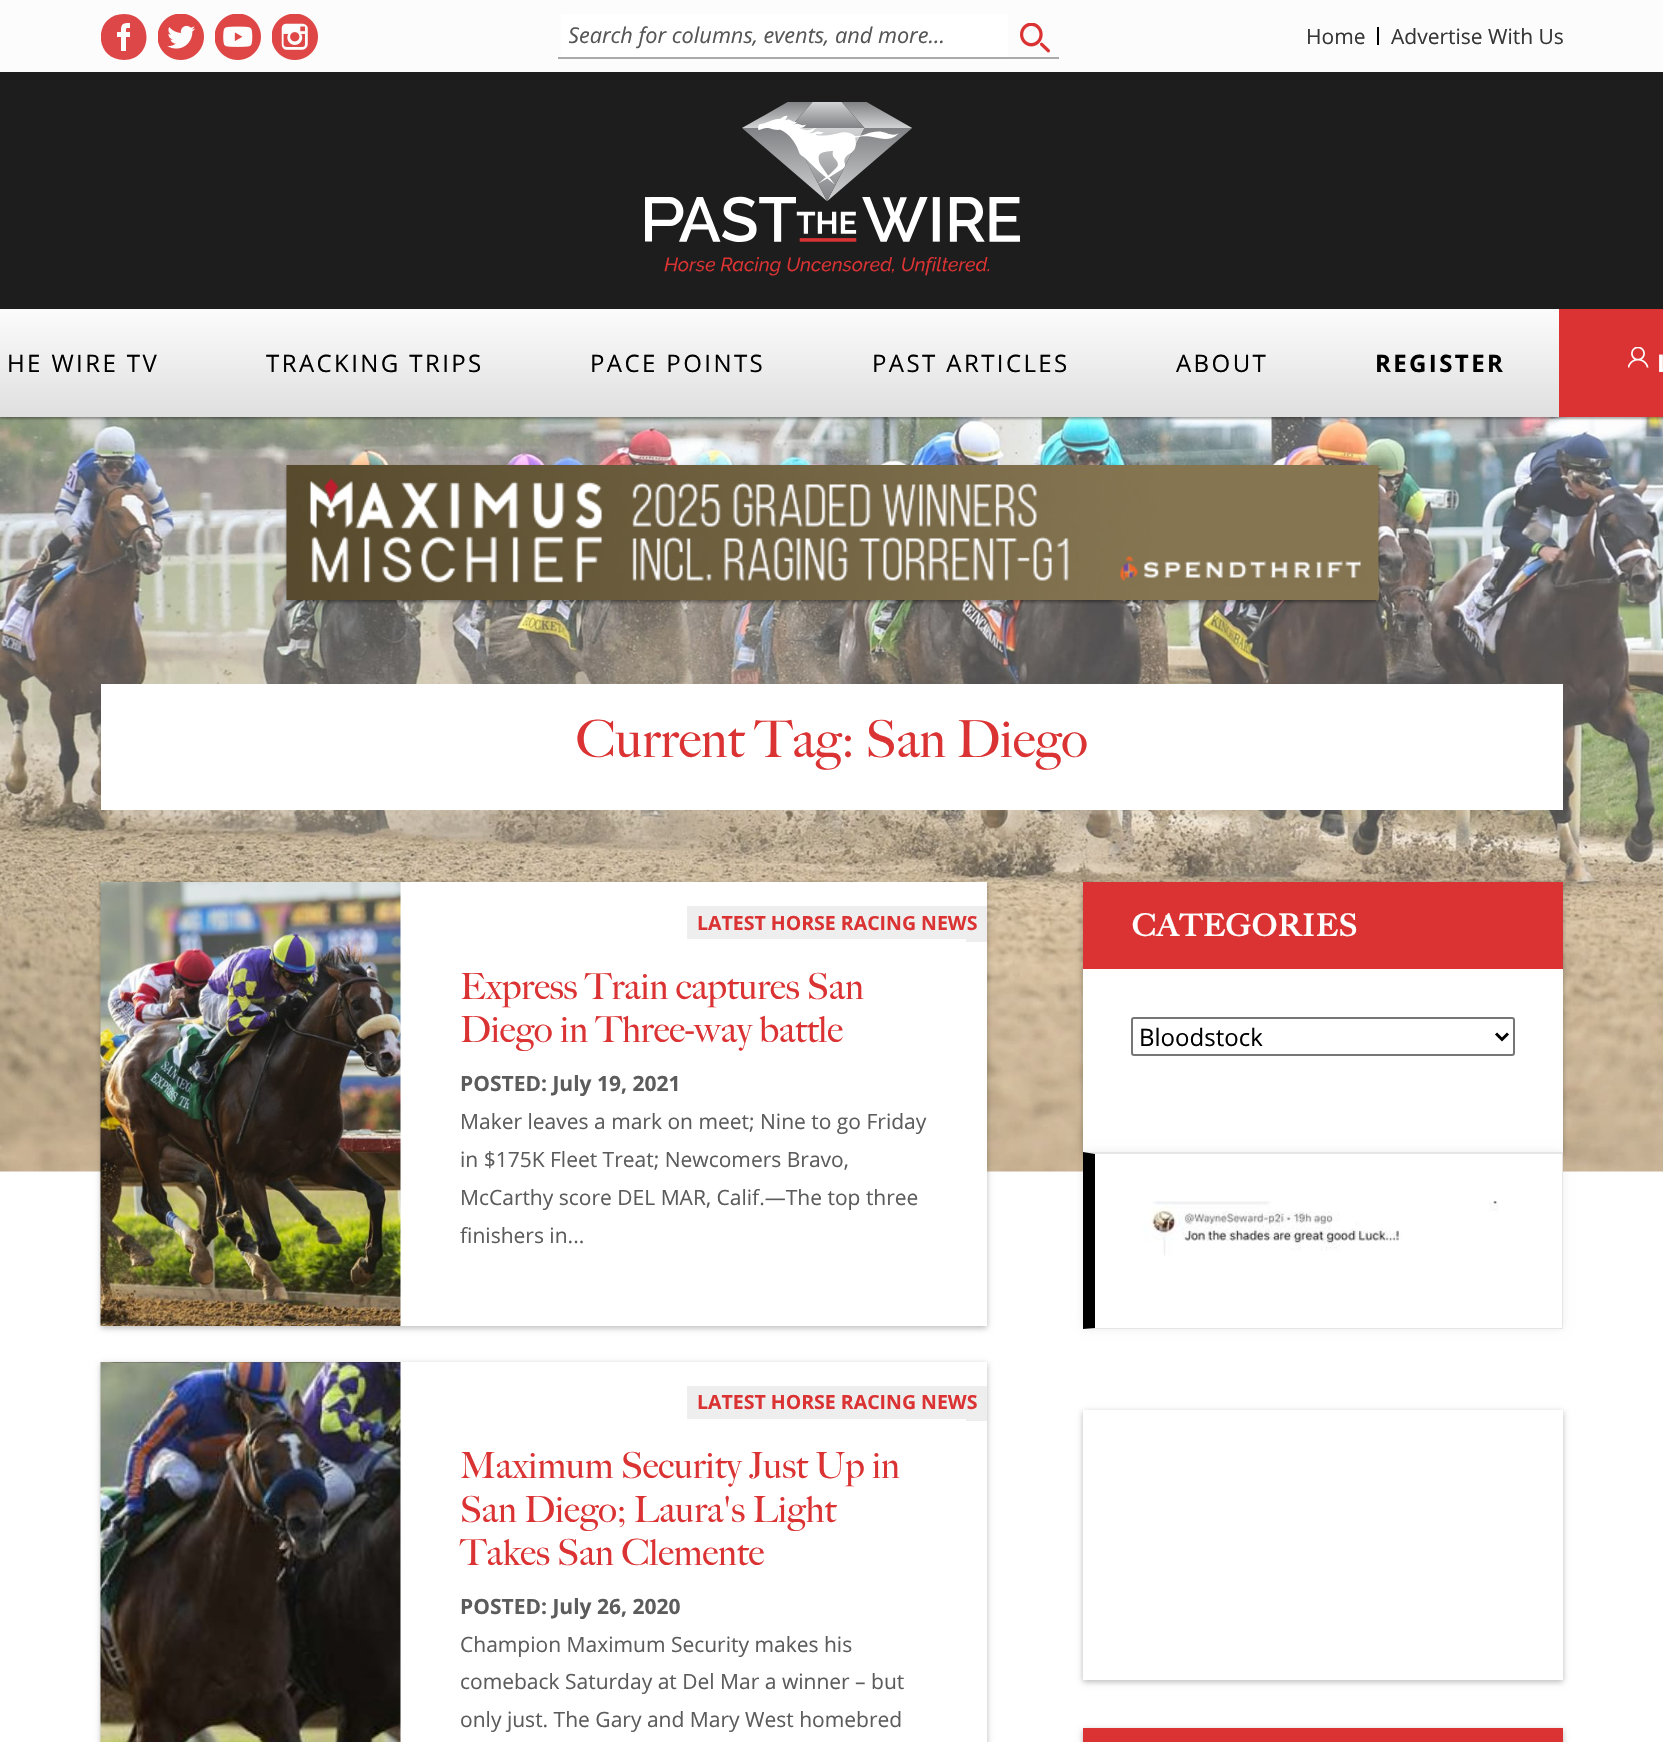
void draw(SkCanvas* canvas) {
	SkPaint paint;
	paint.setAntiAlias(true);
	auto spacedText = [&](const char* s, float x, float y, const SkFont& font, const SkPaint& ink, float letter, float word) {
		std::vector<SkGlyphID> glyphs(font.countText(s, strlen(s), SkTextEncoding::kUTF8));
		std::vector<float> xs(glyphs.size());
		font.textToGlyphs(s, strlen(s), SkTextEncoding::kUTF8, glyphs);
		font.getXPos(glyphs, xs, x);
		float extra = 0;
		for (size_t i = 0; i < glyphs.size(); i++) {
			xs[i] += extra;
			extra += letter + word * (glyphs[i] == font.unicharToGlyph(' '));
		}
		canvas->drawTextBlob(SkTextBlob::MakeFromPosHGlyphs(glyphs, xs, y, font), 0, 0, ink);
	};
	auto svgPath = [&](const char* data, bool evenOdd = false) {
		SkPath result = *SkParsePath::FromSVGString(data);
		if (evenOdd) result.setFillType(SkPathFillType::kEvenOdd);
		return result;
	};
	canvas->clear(0xffffffff);
	paint.setColor(0xfffcfcfc);
	canvas->drawRect(SkRect::MakeXYWH(0, 0, 1663, 72), paint);
	canvas->save();
	canvas->clipRect(SkRect::MakeXYWH(101, 14, 46, 46));
	paint.setColor(0xffde4747);
	canvas->drawPath(svgPath("M124 14C93 14 93 60 124 60C154 60 154 14 124 14ZM130 37H126V51H121V37H117V32H121C121 24 122 23 130 23V28C126 28 126 27 126 32H130Z"), paint);
	canvas->restore();
	canvas->drawImageRect(SkImages::DeferredFromEncodedData(SkData::MakeFromFileName("img1.png")), SkRect::MakeXYWH(158, 14, 46, 46), SkSamplingOptions());
	canvas->drawImageRect(SkImages::DeferredFromEncodedData(SkData::MakeFromFileName("img2.png")), SkRect::MakeXYWH(215, 14, 46, 46), SkSamplingOptions());
	canvas->drawImageRect(SkImages::DeferredFromEncodedData(SkData::MakeFromFileName("img3.png")), SkRect::MakeXYWH(272, 14, 46, 46), SkSamplingOptions());
	paint.setColor(0xffaaaaaa);
	canvas->drawRect(SkRect::MakeXYWH(558, 57, 501, 2), paint);
	paint.setColor(0xffffffff);
	canvas->drawRect(SkRect::MakeXYWH(561, 14, 447, 43), paint);
	canvas->save();
	canvas->clipRect(SkRect::MakeXYWH(569, 21, 411, 29));
	SkFont f1(fontMgr->matchFamilyStyle("Open Sans", SkFontStyle::Italic()), 21.75);
	f1.setSubpixel(true);
	paint.setColor(0xff565656);
	canvas->drawString("Search for columns, events, and more...", 568, 43, f1, paint);
	canvas->restore();
	canvas->drawImageRect(SkImages::DeferredFromEncodedData(SkData::MakeFromFileName("img4.png")), SkRect::MakeXYWH(1020, 23, 30, 30), SkSamplingOptions());
	SkFont f2(fontMgr->matchFamilyStyle("Open Sans", SkFontStyle::Normal()), 21);
	f2.setSubpixel(true);
	paint.setColor(0xff363636);
	canvas->drawString("Home", 1306, 44, f2, paint);
	paint.setColor(0xff000000);
	canvas->drawRect(SkRect::MakeXYWH(1377, 27, 2, 18), paint);
	paint.setColor(0xff363636);
	canvas->drawString("Advertise With Us", 1391, 44, f2, paint);
	canvas->drawImageRect(SkImages::DeferredFromEncodedData(SkData::MakeFromFileName("img7.png")), SkRect::MakeXYWH(0, 417, 1663, 755), SkSamplingOptions());
	paint.setColor(0x52000000);
	paint.setMaskFilter(SkMaskFilter::MakeBlur(kNormal_SkBlurStyle, 1));
	canvas->drawRect(SkRect::MakeXYWH(0, 311, 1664, 108), paint);
	paint.setMaskFilter(nullptr);
	paint.setColor(0xff1d1d1d);
	canvas->drawRect(SkRect::MakeXYWH(0, 72, 1663, 237), paint);
	canvas->drawImageRect(SkImages::DeferredFromEncodedData(SkData::MakeFromFileName("img5.png")), SkRect::MakeXYWH(645, 102, 375, 174), SkSamplingOptions());
	{
		const SkColor colors[] = {0xfffcfcfc, 0xffdfdfdf};
		const float stops[] = {0, 1};
		const SkPoint ends[] = {{832, 309}, {832, 417}};
		paint.setShader(SkGradientShader::MakeLinear(ends, colors, stops, 2, SkTileMode::kClamp));
		paint.setAlpha(255);
	}
	canvas->drawRect(SkRect::MakeXYWH(0, 310, 1559, 107), paint);
	SkFont f3(fontMgr->matchFamilyStyle("Open Sans", SkFontStyle::Normal()), 24);
	f3.setSubpixel(true);
	paint.setShader(nullptr);
	paint.setColor(0xff000000);
	spacedText("HE WIRE TV", 7, 372, f3, paint, 2.4, 0);
	spacedText("TRACKING TRIPS", 266, 372, f3, paint, 2.4, 0);
	spacedText("PACE POINTS", 590, 372, f3, paint, 2.4, 0);
	spacedText("PAST ARTICLES", 872, 372, f3, paint, 2.4, 0);
	spacedText("ABOUT", 1176, 372, f3, paint, 2.4, 0);
	SkFont f4(fontMgr->matchFamilyStyle("Open Sans", SkFontStyle::Bold()), 24);
	f4.setSubpixel(true);
	spacedText("REGISTER", 1375, 372, f4, paint, 2.4, 0);
	paint.setColor(0xffdb3333);
	canvas->drawRect(SkRect::MakeXYWH(1559, 309, 104, 108), paint);
	canvas->drawImageRect(SkImages::DeferredFromEncodedData(SkData::MakeFromFileName("img6.png")), SkRect::MakeXYWH(1628, 347, 21, 21), SkSamplingOptions());
	paint.setColor(0xffffffff);
	spacedText("L", 1657, 372, f4, paint, 2.4, 0);
	paint.setColor(0x66000000);
	paint.setMaskFilter(SkMaskFilter::MakeBlur(kNormal_SkBlurStyle, 1.5));
	canvas->drawRect(SkRect::MakeXYWH(287, 467, 1092, 135), paint);
	paint.setMaskFilter(nullptr);
	canvas->drawImageRect(SkImages::DeferredFromEncodedData(SkData::MakeFromFileName("img8.png")), SkRect::MakeXYWH(286, 465, 1093, 135), SkSamplingOptions());
	paint.setColor(0xffffffff);
	canvas->drawRect(SkRect::MakeXYWH(101, 684, 1462, 126), paint);
	SkFont f5(fontMgr->matchFamilyStyle("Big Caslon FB", SkFontStyle::Normal()), 51);
	f5.setSubpixel(true);
	paint.setColor(0xffdb3333);
	canvas->drawString("Current Tag: San Diego", 576, 757, f5, paint);
	paint.setColor(0x45000000);
	paint.setMaskFilter(SkMaskFilter::MakeBlur(kNormal_SkBlurStyle, 3));
	canvas->drawRect(SkRect::MakeXYWH(101, 884, 886, 444), paint);
	paint.setMaskFilter(nullptr);
	paint.setColor(0xffffffff);
	canvas->drawRect(SkRect::MakeXYWH(400, 882, 587, 444), paint);
	canvas->drawImageRect(SkImages::DeferredFromEncodedData(SkData::MakeFromFileName("img9.png")), SkRect::MakeXYWH(100, 882, 301, 444), SkSamplingOptions());
	paint.setColor(0xffeeeeee);
	canvas->drawRect(SkRect::MakeXYWH(966, 906, 21, 36), paint);
	canvas->drawRect(SkRect::MakeXYWH(687, 906, 279, 33), paint);
	SkFont f6(fontMgr->matchFamilyStyle("Open Sans", SkFontStyle::Bold()), 19.5);
	f6.setSubpixel(true);
	paint.setColor(0xffdb3333);
	canvas->drawString("LATEST HORSE RACING NEWS", 697, 930, f6, paint);
	SkFont f7(fontMgr->matchFamilyStyle("Big Caslon FB", SkFontStyle::Normal()), 36);
	f7.setSubpixel(true);
	canvas->drawString("Express Train captures San", 460, 999, f7, paint);
	canvas->drawString("Diego in Three-way battle", 460, 1042, f7, paint);
	SkFont f8(fontMgr->matchFamilyStyle("Open Sans", SkFontStyle::Bold()), 21);
	f8.setSubpixel(true);
	paint.setColor(0xff5c5c5c);
	canvas->drawString("POSTED: July 19, 2021", 460, 1091, f8, paint);
	canvas->drawString("Maker leaves a mark on meet; Nine to go Friday", 460, 1129, f2, paint);
	canvas->drawString("in $175K Fleet Treat; Newcomers Bravo,", 460, 1167, f2, paint);
	canvas->drawString("McCarthy score DEL MAR, Calif.—The top three", 460, 1205, f2, paint);
	canvas->drawString("finishers in...", 460, 1243, f2, paint);
	canvas->save();
	canvas->clipPath(svgPath("M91 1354H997V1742H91ZM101 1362H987V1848H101Z", true), true);
	paint.setColor(0x45000000);
	paint.setMaskFilter(SkMaskFilter::MakeBlur(kNormal_SkBlurStyle, 3));
	canvas->drawRect(SkRect::MakeXYWH(101, 1364, 886, 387), paint);
	paint.setMaskFilter(nullptr);
	canvas->restore();
	canvas->drawImageRect(SkImages::DeferredFromEncodedData(SkData::MakeFromFileName("img10.png")), SkRect::MakeXYWH(100, 1362, 301, 380), SkSamplingOptions());
	paint.setColor(0xffeeeeee);
	canvas->drawRect(SkRect::MakeXYWH(966, 1386, 21, 35), paint);
	canvas->drawRect(SkRect::MakeXYWH(687, 1386, 279, 33), paint);
	paint.setColor(0xffdb3333);
	canvas->drawString("LATEST HORSE RACING NEWS", 697, 1409, f6, paint);
	canvas->drawString("Maximum Security Just Up in", 460, 1478, f7, paint);
	canvas->drawString("San Diego; Laura's Light", 460, 1522, f7, paint);
	canvas->drawString("Takes San Clemente", 460, 1565, f7, paint);
	paint.setColor(0xff5c5c5c);
	canvas->drawString("POSTED: July 26, 2020", 460, 1614, f8, paint);
	canvas->drawString("Champion Maximum Security makes his", 460, 1652, f2, paint);
	canvas->drawString("comeback Saturday at Del Mar a winner – but", 460, 1689, f2, paint);
	canvas->drawString("only just. The Gary and Mary West homebred", 460, 1727, f2, paint);
	paint.setColor(0x45000000);
	paint.setMaskFilter(SkMaskFilter::MakeBlur(kNormal_SkBlurStyle, 3));
	canvas->drawRect(SkRect::MakeXYWH(1083, 884, 480, 270), paint);
	paint.setMaskFilter(nullptr);
	paint.setColor(0xffffffff);
	canvas->drawRect(SkRect::MakeXYWH(1083, 969, 480, 183), paint);
	paint.setColor(0xffdb3333);
	canvas->drawRect(SkRect::MakeXYWH(1083, 882, 480, 87), paint);
	SkFont f9(fontMgr->matchFamilyStyle("Big Caslon FB", SkFontStyle::Bold()), 30);
	f9.setSubpixel(true);
	paint.setColor(0xffffffff);
	spacedText("CATEGORIES", 1132, 936, f9, paint, 1.5, 0);
	paint.setStroke(true);
	paint.setStrokeWidth(2);
	paint.setColor(0xff767676);
	canvas->drawRoundRect(SkRect::MakeXYWH(1132, 1018, 382, 37), 2, 2, paint);
	paint.setStrokeWidth(3);
	paint.setColor(0xff000000);
	canvas->drawPath(svgPath("M1496 1033.5L1502 1039.5L1508 1033.5"), paint);
	paint.setStroke(false);
	canvas->drawString("Bloodstock", 1139, 1046, f3, paint);
	paint.setColor(0x12000000);
	paint.setMaskFilter(SkMaskFilter::MakeBlur(kNormal_SkBlurStyle, 4.5));
	canvas->drawRect(SkRect::MakeXYWH(1083, 1152, 480, 177), paint);
	paint.setMaskFilter(nullptr);
	paint.setColor(0xffffffff);
	canvas->drawRect(SkRect::MakeXYWH(1083, 1152, 480, 177), paint);
	paint.setColor(0xffe6e6e6);
	canvas->drawPath(svgPath("M1083 1152H1563L1562 1154H1095Z"), paint);
	paint.setColor(0x1a000000);
	canvas->drawPath(svgPath("M1563 1152V1329L1562 1328V1154Z"), paint);
	canvas->drawPath(svgPath("M1563 1329H1083L1095 1328H1562Z"), paint);
	paint.setColor(0xff000000);
	canvas->drawPath(svgPath("M1083 1329V1152L1095 1154V1328Z"), paint);
	canvas->drawImageRect(SkImages::DeferredFromEncodedData(SkData::MakeFromFileName("img11.png")), SkRect::MakeXYWH(1143, 1201, 356, 55), SkSamplingOptions());
	canvas->save();
	canvas->clipPath(svgPath("M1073 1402H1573V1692H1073ZM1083 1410H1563V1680H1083Z", true), true);
	paint.setColor(0x45000000);
	paint.setMaskFilter(SkMaskFilter::MakeBlur(kNormal_SkBlurStyle, 3));
	canvas->drawRect(SkRect::MakeXYWH(1083, 1412, 480, 270), paint);
	paint.setMaskFilter(nullptr);
	canvas->restore();
	paint.setMaskFilter(SkMaskFilter::MakeBlur(kNormal_SkBlurStyle, 3));
	canvas->drawRect(SkRect::MakeXYWH(1083, 1730, 480, 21), paint);
	paint.setMaskFilter(nullptr);
	paint.setColor(0xffdb3333);
	canvas->drawRect(SkRect::MakeXYWH(1083, 1728, 480, 14), paint);
}
